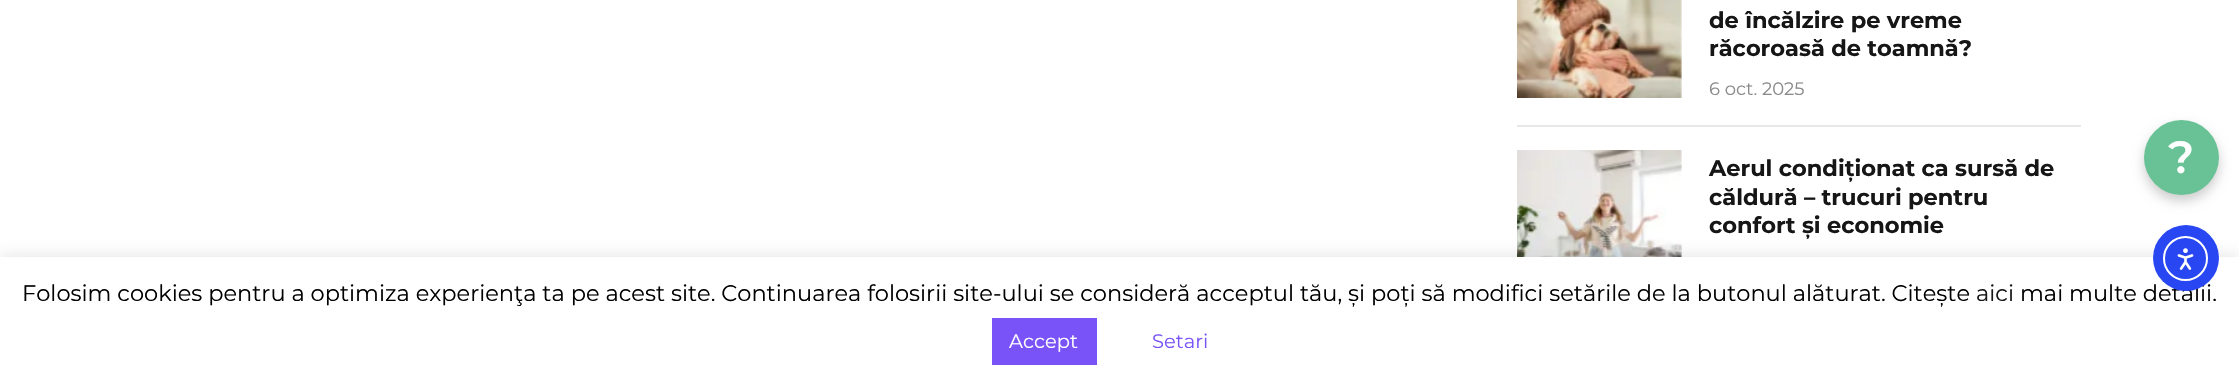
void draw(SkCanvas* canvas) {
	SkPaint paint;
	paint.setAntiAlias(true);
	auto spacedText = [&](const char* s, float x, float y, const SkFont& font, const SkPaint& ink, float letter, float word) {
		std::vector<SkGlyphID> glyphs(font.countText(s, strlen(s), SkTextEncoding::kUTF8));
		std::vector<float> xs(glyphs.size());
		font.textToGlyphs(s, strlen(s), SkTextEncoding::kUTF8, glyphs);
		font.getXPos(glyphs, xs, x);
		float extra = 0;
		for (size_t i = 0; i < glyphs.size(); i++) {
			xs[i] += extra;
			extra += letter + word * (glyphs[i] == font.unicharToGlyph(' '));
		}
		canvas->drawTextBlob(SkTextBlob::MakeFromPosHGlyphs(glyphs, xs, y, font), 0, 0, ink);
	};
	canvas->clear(0xffffffff);
	canvas->drawImageRect(SkImages::DeferredFromEncodedData(SkData::MakeFromFileName("img1.png")), SkRect::MakeXYWH(1517, 0, 165, 98), SkSamplingOptions());
	SkFont f1(fontMgr->matchFamilyStyle("Montserrat", SkFontStyle::Bold()), 22.5);
	f1.setSubpixel(true);
	paint.setColor(0xff161616);
	canvas->drawString("de încălzire pe vreme", 1709, 28, f1, paint);
	canvas->drawString("răcoroasă de toamnă?", 1709, 56, f1, paint);
	SkFont f2(fontMgr->matchFamilyStyle("Montserrat", SkFontStyle::Normal()), 18);
	f2.setSubpixel(true);
	paint.setColor(0xff8a8a8a);
	canvas->drawString("6 oct. 2025", 1709, 95, f2, paint);
	paint.setColor(0xffe8e8e8);
	canvas->drawRect(SkRect::MakeXYWH(1517, 125, 564, 2), paint);
	canvas->drawImageRect(SkImages::DeferredFromEncodedData(SkData::MakeFromFileName("img2.png")), SkRect::MakeXYWH(1517, 150, 165, 107), SkSamplingOptions());
	paint.setColor(0xff161616);
	canvas->drawString("Aerul condiționat ca sursă de", 1709, 176, f1, paint);
	canvas->drawString("căldură – trucuri pentru", 1709, 205, f1, paint);
	canvas->drawString("confort și economie", 1709, 233, f1, paint);
	paint.setColor(0x33000000);
	paint.setMaskFilter(SkMaskFilter::MakeBlur(kNormal_SkBlurStyle, 6));
	canvas->drawRoundRect(SkRect::MakeXYWH(2144, 126, 75, 75), 37.5, 37.5, paint);
	paint.setMaskFilter(nullptr);
	paint.setColor(0xff69c296);
	canvas->drawCircle(2181.5, 157.5, 37.5, paint);
	SkFont f3(fontMgr->matchFamilyStyle("Montserrat", SkFontStyle(600, SkFontStyle::kNormal_Width, SkFontStyle::kUpright_Slant)), 45);
	f3.setSubpixel(true);
	paint.setColor(0xffffffff);
	spacedText("?", 2168, 173, f3, paint, 1, 0);
	paint.setColor(0x4dacabab);
	paint.setMaskFilter(SkMaskFilter::MakeBlur(kNormal_SkBlurStyle, 7.5));
	canvas->drawRect(SkRect::MakeXYWH(0, 255, 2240, 134), paint);
	paint.setMaskFilter(nullptr);
	paint.setColor(0xffffffff);
	canvas->drawRect(SkRect::MakeXYWH(0, 257, 2239, 132), paint);
	SkFont f4(fontMgr->matchFamilyStyle("Montserrat", SkFontStyle::Normal()), 22.5);
	f4.setSubpixel(true);
	paint.setColor(0xff000000);
	canvas->drawString("mai multe detalii.", 2020, 301, f4, paint);
	paint.setColor(0xff2847f3);
	canvas->drawCircle(2186, 258, 33, paint);
	paint.setStroke(true);
	paint.setStrokeWidth(2);
	paint.setColor(0xffffffff);
	canvas->drawCircle(2185.5, 258.5, 21.5, paint);
	canvas->drawImageRect(SkImages::DeferredFromEncodedData(SkData::MakeFromFileName("img3.png")), SkRect::MakeXYWH(2177, 248, 17, 22), SkSamplingOptions());
	paint.setStroke(false);
	paint.setColor(0xff000000);
	canvas->drawString("Folosim cookies pentru a optimiza experienţa ta pe acest site. Continuarea folosirii site-ului se consideră acceptul tău, și poți să modifici setările de la butonul alăturat. Citește", 22, 301, f4, paint);
	paint.setColor(0xff161616);
	canvas->drawString("aici", 1976, 301, f4, paint);
	paint.setColor(0xff7953f7);
	canvas->drawRect(SkRect::MakeXYWH(992, 318, 105, 47), paint);
	SkFont f5(fontMgr->matchFamilyStyle("Montserrat", SkFontStyle::Normal()), 19.5);
	f5.setSubpixel(true);
	paint.setColor(0xffffffff);
	canvas->drawString("Accept", 1009, 348, f5, paint);
	paint.setColor(0xff7953f7);
	canvas->drawString("Setari", 1152, 348, f5, paint);
}
